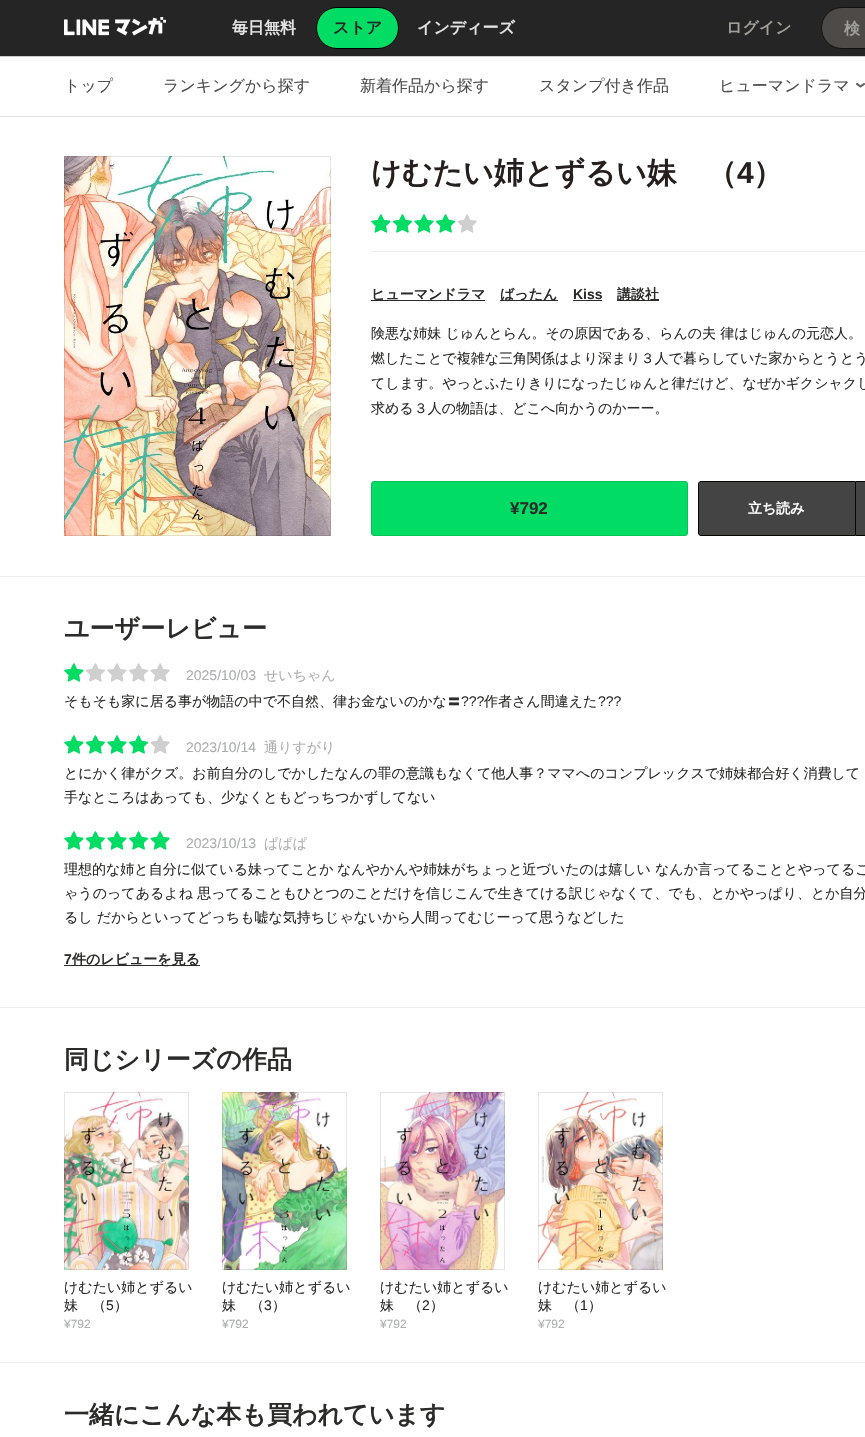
void draw(SkCanvas* canvas) {
	SkPaint paint;
	paint.setAntiAlias(true);
	auto svgPath = [&](const char* data, bool evenOdd = false) {
		SkPath result = *SkParsePath::FromSVGString(data);
		if (evenOdd) result.setFillType(SkPathFillType::kEvenOdd);
		return result;
	};
	canvas->clear(0xffffffff);
	paint.setColor(0xff262525);
	canvas->drawRect(SkRect::MakeXYWH(0, 0, 865, 56), paint);
	canvas->drawImageRect(SkImages::DeferredFromEncodedData(SkData::MakeFromFileName("img1.png")), SkRect::MakeXYWH(64, 17, 102, 19), SkSamplingOptions());
	SkFont f1(fontMgr->matchFamilyStyle("WenQuanYi Zen Hei", SkFontStyle::Bold()), 16);
	f1.setSubpixel(true);
	paint.setColor(0xffe3e3e3);
	canvas->drawString("毎日無料", 232, 33, f1, paint);
	paint.setColor(0xff00dc64);
	canvas->drawRoundRect(SkRect::MakeXYWH(316.5, 7.5, 82, 41), 20.5, 20.5, paint);
	paint.setStroke(true);
	paint.setStrokeWidth(1);
	paint.setColor(0xff000000);
	canvas->drawRoundRect(SkRect::MakeXYWH(316.5, 7.5, 82, 41), 20.5, 20.5, paint);
	paint.setStroke(false);
	paint.setColor(0xff262525);
	canvas->drawString("ストア", 333, 33, f1, paint);
	paint.setColor(0xffe3e3e3);
	canvas->drawString("インディーズ", 417, 33, f1, paint);
	paint.setColor(0xffa19f9a);
	canvas->drawString("ログイン", 726, 33, f1, paint);
	paint.setColor(0xff4d4a48);
	canvas->drawRoundRect(SkRect::MakeXYWH(821.5, 7.5, 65, 41), 20.5, 20.5, paint);
	paint.setStroke(true);
	paint.setColor(0xff121111);
	canvas->drawRoundRect(SkRect::MakeXYWH(821.5, 7.5, 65, 41), 20.5, 20.5, paint);
	paint.setStroke(false);
	paint.setColor(0xffa19f9a);
	canvas->drawString("検", 844, 34, f1, paint);
	paint.setColor(0xffcccccc);
	canvas->drawRect(SkRect::MakeXYWH(0, 56, 865, 1), paint);
	SkFont f2(fontMgr->matchFamilyStyle("WenQuanYi Zen Hei", SkFontStyle(500, SkFontStyle::kNormal_Width, SkFontStyle::kUpright_Slant)), 16);
	f2.setSubpixel(true);
	paint.setColor(0xff4d4d4d);
	canvas->drawString("トップ", 64, 91, f2, paint);
	canvas->drawString("ランキングから探す", 163, 91, f2, paint);
	canvas->drawString("新着作品から探す", 360, 91, f2, paint);
	canvas->drawString("スタンプ付き作品", 539, 91, f2, paint);
	canvas->drawString("ヒューマンドラマ", 719, 91, f2, paint);
	canvas->drawImageRect(SkImages::DeferredFromEncodedData(SkData::MakeFromFileName("img2.png")), SkRect::MakeXYWH(856, 83, 9, 5), SkSamplingOptions());
	paint.setColor(0xffe2e1e1);
	canvas->drawRect(SkRect::MakeXYWH(0, 116, 865, 1), paint);
	canvas->drawImageRect(SkImages::DeferredFromEncodedData(SkData::MakeFromFileName("img3.png")), SkRect::MakeXYWH(64, 156, 267, 380), SkSamplingOptions());
	paint.setStroke(true);
	paint.setColor(0x1a000000);
	canvas->drawRect(SkRect::MakeXYWH(64.5, 156.5, 266, 379), paint);
	SkFont f3(fontMgr->matchFamilyStyle("WenQuanYi Zen Hei", SkFontStyle::Bold()), 30);
	f3.setSubpixel(true);
	paint.setStroke(false);
	paint.setColor(0xff251f1e);
	canvas->drawString("けむたい姉とずるい妹　（", 371, 183, f3, paint);
	SkFont f4(fontMgr->matchFamilyStyle("Liberation Sans", SkFontStyle::Bold()), 30);
	f4.setSubpixel(true);
	canvas->drawString("4", 737, 183, f4, paint);
	canvas->drawString("）", 753, 183, f3, paint);
	canvas->drawImageRect(SkImages::DeferredFromEncodedData(SkData::MakeFromFileName("img4.png")), SkRect::MakeXYWH(371, 214, 106, 19), SkSamplingOptions());
	paint.setColor(0xfff0efed);
	canvas->drawRect(SkRect::MakeXYWH(371, 251, 494, 1), paint);
	paint.setColor(0xff2b2b2a);
	canvas->drawRect(SkRect::MakeXYWH(371, 300, 114, 1), paint);
	SkFont f5(fontMgr->matchFamilyStyle("WenQuanYi Zen Hei", SkFontStyle::Bold()), 14);
	f5.setSubpixel(true);
	canvas->drawString("ヒューマンドラマ", 371, 299, f5, paint);
	canvas->drawRect(SkRect::MakeXYWH(500, 300, 58, 1), paint);
	canvas->drawString("ばったん", 500, 299, f5, paint);
	SkFont f6(fontMgr->matchFamilyStyle("Liberation Sans", SkFontStyle::Bold()), 14);
	f6.setSubpixel(true);
	canvas->drawString("Kiss", 573, 299, f6, paint);
	canvas->drawRect(SkRect::MakeXYWH(573, 300, 29, 1), paint);
	canvas->drawRect(SkRect::MakeXYWH(617, 300, 42, 1), paint);
	canvas->drawString("講談社", 617, 299, f5, paint);
	SkFont f7(fontMgr->matchFamilyStyle("WenQuanYi Zen Hei", SkFontStyle(500, SkFontStyle::kNormal_Width, SkFontStyle::kUpright_Slant)), 14);
	f7.setSubpixel(true);
	canvas->drawString("険悪な姉妹 じゅんとらん。その原因である、らんの夫 律はじゅんの元恋人。", 371, 338, f7, paint);
	canvas->drawString("燃したことで複雑な三角関係はより深まり３人で暮らしていた家からとうとう", 371, 363, f7, paint);
	canvas->drawString("てします。やっとふたりきりになったじゅんと律だけど、なぜかギクシャクし", 371, 388, f7, paint);
	canvas->drawString("求める３人の物語は、どこへ向かうのかーー。", 371, 413, f7, paint);
	paint.setColor(0xff00dc64);
	canvas->drawRoundRect(SkRect::MakeXYWH(371.5, 481.5, 316, 54), 2.5, 2.5, paint);
	paint.setStroke(true);
	paint.setColor(0xff03c359);
	canvas->drawRoundRect(SkRect::MakeXYWH(371.5, 481.5, 316, 54), 2.5, 2.5, paint);
	SkFont f8(fontMgr->matchFamilyStyle("Liberation Sans", SkFontStyle::Bold()), 17);
	f8.setSubpixel(true);
	paint.setStroke(false);
	paint.setColor(0xff2b2b2a);
	canvas->drawString("¥792", 510, 514, f8, paint);
	paint.setColor(0xff444444);
	canvas->drawPath(svgPath("M701 481.5H855.5V535.5H701C699.5 535.5 698.5 534.5 698.5 533V484C698.5 482.5 699.5 481.5 701 481.5Z"), paint);
	paint.setStroke(true);
	paint.setColor(0xff050600);
	canvas->drawPath(svgPath("M701 481.5H855.5V535.5H701C699.5 535.5 698.5 534.5 698.5 533V484C698.5 482.5 699.5 481.5 701 481.5Z"), paint);
	paint.setStroke(false);
	paint.setColor(0xffffffff);
	canvas->drawString("立ち読み", 748, 513, f5, paint);
	paint.setColor(0xff444444);
	canvas->drawRect(SkRect::MakeXYWH(856, 482, 9, 53), paint);
	paint.setColor(0xff050600);
	canvas->drawPath(svgPath("M856 481H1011C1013 481 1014 482 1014 484V533C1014 535 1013 536 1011 536H856ZM856 482H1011C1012 482 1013 483 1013 484V533C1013 534 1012 535 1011 535H856Z", true), paint);
	paint.setColor(0xfff0efed);
	canvas->drawRect(SkRect::MakeXYWH(0, 576, 865, 1), paint);
	SkFont f9(fontMgr->matchFamilyStyle("WenQuanYi Zen Hei", SkFontStyle::Bold()), 25);
	f9.setSubpixel(true);
	paint.setColor(0xff2b2b2a);
	canvas->drawString("ユーザーレビュー", 64, 637, f9, paint);
	canvas->drawImageRect(SkImages::DeferredFromEncodedData(SkData::MakeFromFileName("img5.png")), SkRect::MakeXYWH(64, 663, 106, 19), SkSamplingOptions());
	SkFont f10(fontMgr->matchFamilyStyle("Liberation Sans", SkFontStyle::Normal()), 14);
	f10.setSubpixel(true);
	paint.setColor(0xffacadae);
	canvas->drawString("2025/10/03", 186, 680, f10, paint);
	canvas->drawString("せいちゃん", 264, 680, f7, paint);
	paint.setColor(0xff2b2b2a);
	canvas->drawString("そもそも家に居る事が物語の中で不自然、律お金ないのかな〓", 64, 706, f7, paint);
	canvas->drawString("?\077?", 461, 706, f10, paint);
	canvas->drawString("作者さん間違えた", 484, 706, f7, paint);
	canvas->drawString("?\077?", 598, 706, f10, paint);
	canvas->drawImageRect(SkImages::DeferredFromEncodedData(SkData::MakeFromFileName("img4.png")), SkRect::MakeXYWH(64, 735, 106, 19), SkSamplingOptions());
	paint.setColor(0xffacadae);
	canvas->drawString("2023/10/14", 186, 752, f10, paint);
	canvas->drawString("通りすがり", 264, 752, f7, paint);
	paint.setColor(0xff2b2b2a);
	canvas->drawString("とにかく律がクズ。お前自分のしでかしたなんの罪の意識もなくて他人事？ママへのコンプレックスで姉妹都合好く消費して", 64, 778, f7, paint);
	canvas->drawString("手なところはあっても、少なくともどっちつかずしてない", 64, 802, f7, paint);
	canvas->drawImageRect(SkImages::DeferredFromEncodedData(SkData::MakeFromFileName("img6.png")), SkRect::MakeXYWH(64, 831, 106, 19), SkSamplingOptions());
	paint.setColor(0xffacadae);
	canvas->drawString("2023/10/13", 186, 848, f10, paint);
	canvas->drawString("ぱぱぱ", 264, 848, f7, paint);
	paint.setColor(0xff2b2b2a);
	canvas->drawString("理想的な姉と自分に似ている妹ってことか", 64, 874, f7, paint);
	canvas->drawString("なんやかんや姉妹がちょっと近づいたのは嬉しい", 337, 874, f7, paint);
	canvas->drawString("なんか言ってることとやってるこ", 655, 874, f7, paint);
	canvas->drawString("ゃうのってあるよね 思ってることもひとつのことだけを信じこんで生きてける訳じゃなくて、でも、とかやっぱり、とか自分", 64, 898, f7, paint);
	canvas->drawString("るし だからといってどっちも嘘な気持ちじゃないから人間ってむじーって思うなどした", 64, 922, f7, paint);
	canvas->drawString("7", 64, 964, f6, paint);
	canvas->drawRect(SkRect::MakeXYWH(64, 965, 136, 1), paint);
	canvas->drawString("件のレビューを見る", 72, 964, f5, paint);
	paint.setColor(0xfff0efed);
	canvas->drawRect(SkRect::MakeXYWH(0, 1007, 865, 1), paint);
	paint.setColor(0xff2b2b2a);
	canvas->drawString("同じシリーズの作品", 64, 1068, f9, paint);
	canvas->drawImageRect(SkImages::DeferredFromEncodedData(SkData::MakeFromFileName("img7.png")), SkRect::MakeXYWH(64, 1092, 125, 178), SkSamplingOptions());
	paint.setStroke(true);
	paint.setColor(0x1a000000);
	canvas->drawRect(SkRect::MakeXYWH(64.5, 1092.5, 124, 177), paint);
	paint.setStroke(false);
	paint.setColor(0xff2b2b2a);
	canvas->drawString("けむたい姉とずるい", 64, 1292, f7, paint);
	canvas->drawString("妹　（", 64, 1310, f7, paint);
	canvas->drawString("5", 106, 1310, f10, paint);
	canvas->drawString("）", 114, 1310, f7, paint);
	SkFont f11(fontMgr->matchFamilyStyle("Liberation Sans", SkFontStyle::Normal()), 12);
	f11.setSubpixel(true);
	paint.setColor(0xffacadae);
	canvas->drawString("¥792", 64, 1328, f11, paint);
	canvas->drawImageRect(SkImages::DeferredFromEncodedData(SkData::MakeFromFileName("img8.png")), SkRect::MakeXYWH(222, 1092, 125, 178), SkSamplingOptions());
	paint.setStroke(true);
	paint.setColor(0x1a000000);
	canvas->drawRect(SkRect::MakeXYWH(222.5, 1092.5, 124, 177), paint);
	paint.setStroke(false);
	paint.setColor(0xff2b2b2a);
	canvas->drawString("けむたい姉とずるい", 222, 1292, f7, paint);
	canvas->drawString("妹　（", 222, 1310, f7, paint);
	canvas->drawString("3", 264, 1310, f10, paint);
	canvas->drawString("）", 272, 1310, f7, paint);
	paint.setColor(0xffacadae);
	canvas->drawString("¥792", 222, 1328, f11, paint);
	canvas->drawImageRect(SkImages::DeferredFromEncodedData(SkData::MakeFromFileName("img9.png")), SkRect::MakeXYWH(380, 1092, 125, 178), SkSamplingOptions());
	paint.setStroke(true);
	paint.setColor(0x1a000000);
	canvas->drawRect(SkRect::MakeXYWH(380.5, 1092.5, 124, 177), paint);
	paint.setStroke(false);
	paint.setColor(0xff2b2b2a);
	canvas->drawString("けむたい姉とずるい", 380, 1292, f7, paint);
	canvas->drawString("妹　（", 380, 1310, f7, paint);
	canvas->drawString("2", 422, 1310, f10, paint);
	canvas->drawString("）", 430, 1310, f7, paint);
	paint.setColor(0xffacadae);
	canvas->drawString("¥792", 380, 1328, f11, paint);
	canvas->drawImageRect(SkImages::DeferredFromEncodedData(SkData::MakeFromFileName("img10.png")), SkRect::MakeXYWH(538, 1092, 125, 178), SkSamplingOptions());
	paint.setStroke(true);
	paint.setColor(0x1a000000);
	canvas->drawRect(SkRect::MakeXYWH(538.5, 1092.5, 124, 177), paint);
	paint.setStroke(false);
	paint.setColor(0xff2b2b2a);
	canvas->drawString("けむたい姉とずるい", 538, 1292, f7, paint);
	canvas->drawString("妹　（", 538, 1310, f7, paint);
	canvas->drawString("1", 580, 1310, f10, paint);
	canvas->drawString("）", 588, 1310, f7, paint);
	paint.setColor(0xffacadae);
	canvas->drawString("¥792", 538, 1328, f11, paint);
	paint.setColor(0xfff0efed);
	canvas->drawRect(SkRect::MakeXYWH(0, 1362, 865, 1), paint);
	paint.setColor(0xff2b2b2a);
	canvas->drawString("一緒にこんな本も買われています", 64, 1423, f9, paint);
}
